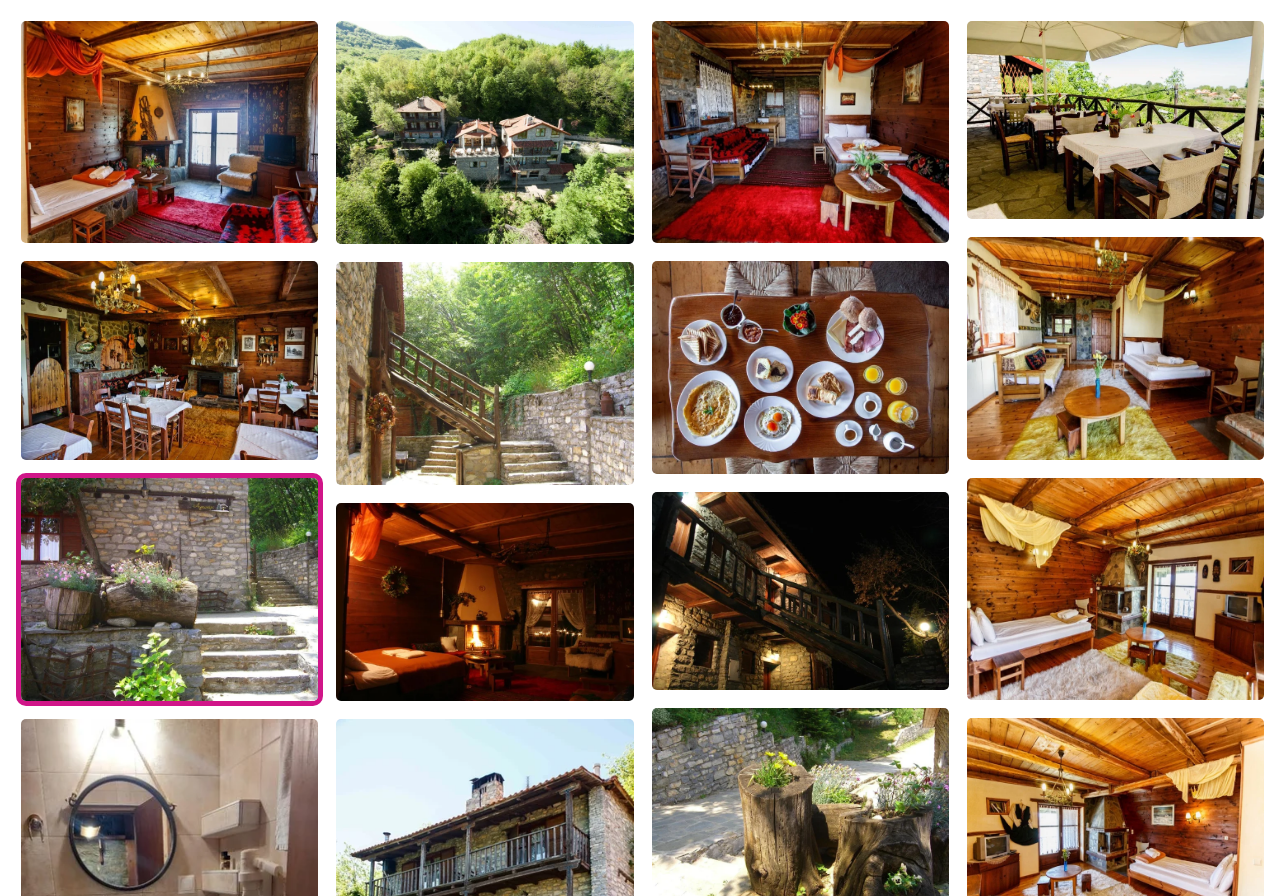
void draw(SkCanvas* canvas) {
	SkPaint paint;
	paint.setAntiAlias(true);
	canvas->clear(0xffffffff);
	canvas->drawImageRect(SkImages::DeferredFromEncodedData(SkData::MakeFromFileName("img1.png")), SkRect::MakeXYWH(21, 21, 297, 222), SkSamplingOptions());
	canvas->drawImageRect(SkImages::DeferredFromEncodedData(SkData::MakeFromFileName("img2.png")), SkRect::MakeXYWH(21, 261, 297, 199), SkSamplingOptions());
	paint.setStroke(true);
	paint.setStrokeWidth(5);
	paint.setColor(0xffd01588);
	canvas->drawRoundRect(SkRect::MakeXYWH(18.5, 475.5, 302, 228), 7.5, 7.5, paint);
	canvas->drawImageRect(SkImages::DeferredFromEncodedData(SkData::MakeFromFileName("img3.png")), SkRect::MakeXYWH(21, 478, 297, 223), SkSamplingOptions());
	canvas->drawImageRect(SkImages::DeferredFromEncodedData(SkData::MakeFromFileName("img4.png")), SkRect::MakeXYWH(21, 719, 297, 177), SkSamplingOptions());
	canvas->drawImageRect(SkImages::DeferredFromEncodedData(SkData::MakeFromFileName("img5.png")), SkRect::MakeXYWH(336, 21, 298, 223), SkSamplingOptions());
	canvas->drawImageRect(SkImages::DeferredFromEncodedData(SkData::MakeFromFileName("img6.png")), SkRect::MakeXYWH(336, 262, 298, 223), SkSamplingOptions());
	canvas->drawImageRect(SkImages::DeferredFromEncodedData(SkData::MakeFromFileName("img7.png")), SkRect::MakeXYWH(336, 503, 298, 198), SkSamplingOptions());
	canvas->drawImageRect(SkImages::DeferredFromEncodedData(SkData::MakeFromFileName("img8.png")), SkRect::MakeXYWH(336, 719, 298, 177), SkSamplingOptions());
	canvas->drawImageRect(SkImages::DeferredFromEncodedData(SkData::MakeFromFileName("img9.png")), SkRect::MakeXYWH(652, 21, 297, 222), SkSamplingOptions());
	canvas->drawImageRect(SkImages::DeferredFromEncodedData(SkData::MakeFromFileName("img10.png")), SkRect::MakeXYWH(652, 261, 297, 213), SkSamplingOptions());
	canvas->drawImageRect(SkImages::DeferredFromEncodedData(SkData::MakeFromFileName("img11.png")), SkRect::MakeXYWH(652, 492, 297, 198), SkSamplingOptions());
	canvas->drawImageRect(SkImages::DeferredFromEncodedData(SkData::MakeFromFileName("img12.png")), SkRect::MakeXYWH(652, 708, 297, 188), SkSamplingOptions());
	canvas->drawImageRect(SkImages::DeferredFromEncodedData(SkData::MakeFromFileName("img13.png")), SkRect::MakeXYWH(967, 21, 297, 198), SkSamplingOptions());
	canvas->drawImageRect(SkImages::DeferredFromEncodedData(SkData::MakeFromFileName("img14.png")), SkRect::MakeXYWH(967, 237, 297, 223), SkSamplingOptions());
	canvas->drawImageRect(SkImages::DeferredFromEncodedData(SkData::MakeFromFileName("img15.png")), SkRect::MakeXYWH(967, 478, 297, 222), SkSamplingOptions());
	canvas->drawImageRect(SkImages::DeferredFromEncodedData(SkData::MakeFromFileName("img16.png")), SkRect::MakeXYWH(967, 718, 297, 178), SkSamplingOptions());
}
